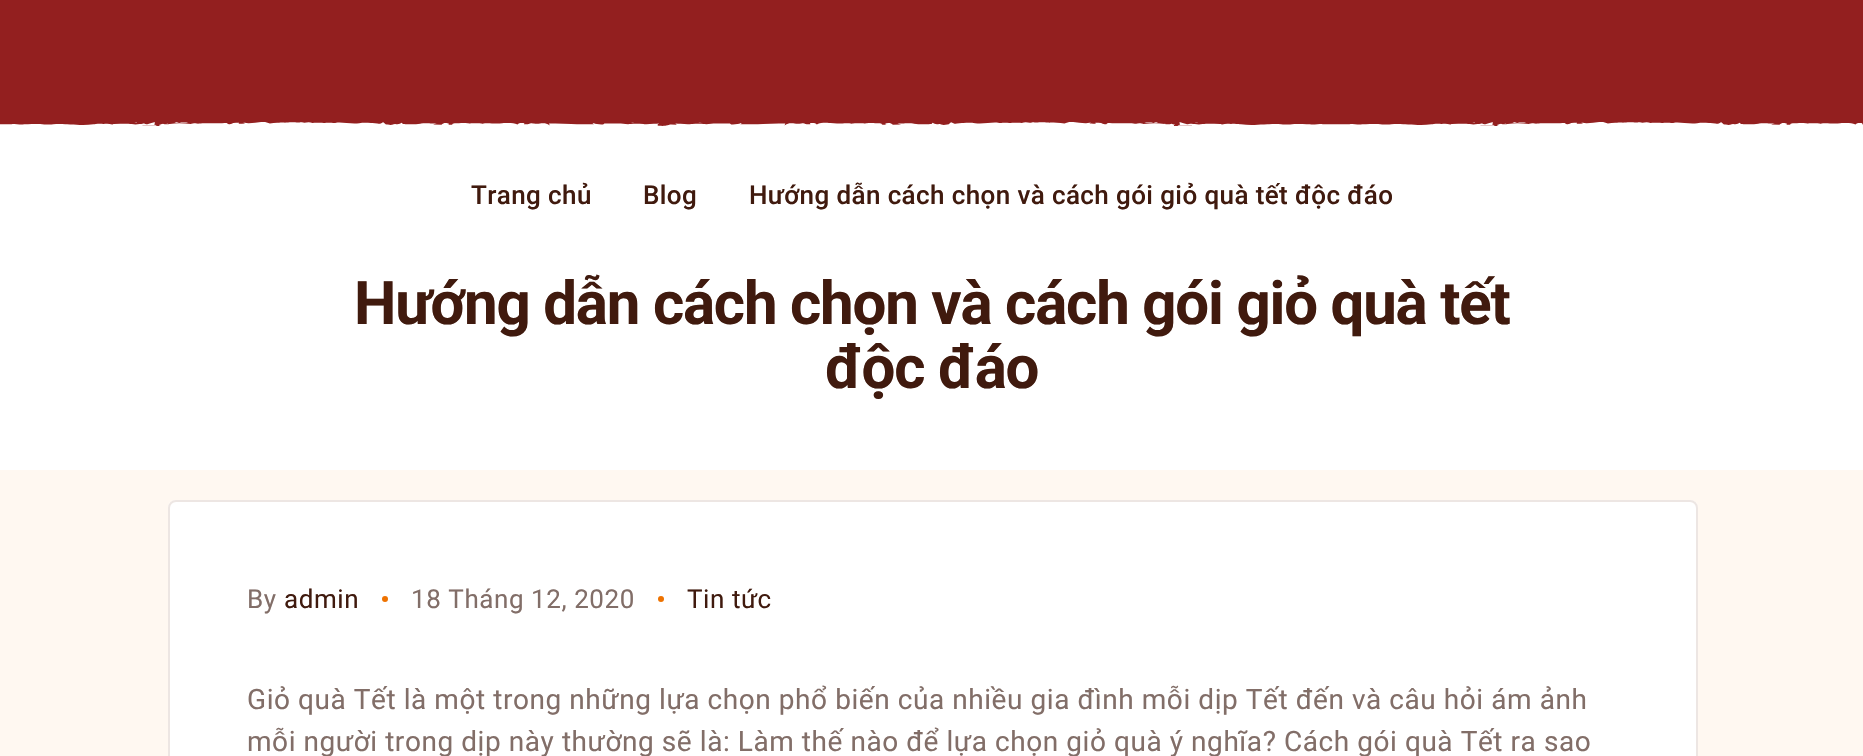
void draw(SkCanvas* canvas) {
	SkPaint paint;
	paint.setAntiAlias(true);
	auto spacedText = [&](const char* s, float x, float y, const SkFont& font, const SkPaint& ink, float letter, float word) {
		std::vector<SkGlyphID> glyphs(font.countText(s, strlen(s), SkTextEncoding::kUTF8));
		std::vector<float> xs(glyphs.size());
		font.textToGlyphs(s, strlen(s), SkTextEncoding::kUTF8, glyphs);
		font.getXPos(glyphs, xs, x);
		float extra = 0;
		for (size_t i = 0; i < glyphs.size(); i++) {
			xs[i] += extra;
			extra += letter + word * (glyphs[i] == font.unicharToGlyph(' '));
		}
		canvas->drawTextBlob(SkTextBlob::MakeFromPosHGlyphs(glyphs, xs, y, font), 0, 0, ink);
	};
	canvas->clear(0xfffff8f1);
	paint.setColor(0xff931f1f);
	canvas->drawRect(SkRect::MakeXYWH(0, 0, 1863, 120), paint);
	paint.setColor(0xffffffff);
	canvas->drawRect(SkRect::MakeXYWH(0, 122, 1863, 348), paint);
	canvas->drawImageRect(SkImages::DeferredFromEncodedData(SkData::MakeFromFileName("img1.png")), SkRect::MakeXYWH(0, 120, 1863, 6), SkSamplingOptions());
	SkFont f1(fontMgr->matchFamilyStyle("Roboto", SkFontStyle(500, SkFontStyle::kNormal_Width, SkFontStyle::kUpright_Slant)), 26);
	f1.setSubpixel(true);
	paint.setColor(0xff401a0e);
	spacedText("Trang chủ", 471, 204, f1, paint, 0.4, 0);
	spacedText("Blog", 643, 204, f1, paint, 0.4, 0);
	spacedText("Hướng dẫn cách chọn và cách gói giỏ quà tết độc đáo", 749, 204, f1, paint, 0.4, 0);
	SkFont f2(fontMgr->matchFamilyStyle("Roboto", SkFontStyle::Bold()), 60);
	f2.setSubpixel(true);
	spacedText("Hướng dẫn cách chọn và cách gói giỏ quà tết", 354, 324, f2, paint, -1.2, 0);
	spacedText("độc đáo", 825, 388, f2, paint, -1.2, 0);
	paint.setColor(0xffffffff);
	canvas->drawRoundRect(SkRect::MakeXYWH(168, 500, 1530, 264), 8, 8, paint);
	paint.setColor(0xffee7200);
	canvas->drawCircle(385, 599, 3, paint);
	canvas->drawCircle(661, 599, 3, paint);
	paint.setStroke(true);
	paint.setStrokeWidth(2);
	paint.setColor(0xffede6e3);
	canvas->drawRoundRect(SkRect::MakeXYWH(169, 501, 1528, 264), 7, 7, paint);
	SkFont f3(fontMgr->matchFamilyStyle("Roboto", SkFontStyle::Normal()), 26);
	f3.setSubpixel(true);
	paint.setStroke(false);
	paint.setColor(0xff826e68);
	spacedText("By", 247, 608, f3, paint, 0.56, 0);
	paint.setColor(0xff401a0e);
	spacedText("admin", 284, 608, f3, paint, 0.56, 0);
	paint.setColor(0xff826e68);
	spacedText("18 Tháng 12, 2020", 411, 608, f3, paint, 0.56, 0);
	paint.setColor(0xff401a0e);
	spacedText("Tin tức", 687, 608, f3, paint, 0.56, 0);
	SkFont f4(fontMgr->matchFamilyStyle("Roboto", SkFontStyle::Normal()), 28);
	f4.setSubpixel(true);
	paint.setColor(0xff826e68);
	spacedText("Giỏ quà Tết là một trong những lựa chọn phổ biến của nhiều gia đình mỗi dịp Tết đến và câu hỏi ám ảnh", 247, 709, f4, paint, 0.56, 0);
	spacedText("mỗi người trong dịp này thường sẽ là: Làm thế nào để lựa chọn giỏ quà ý nghĩa? Cách gói quà Tết ra sao", 247, 751, f4, paint, 0.56, 0);
}
